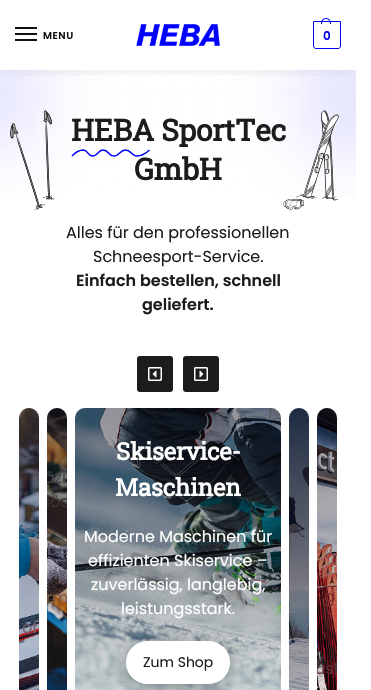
void draw(SkCanvas* canvas) {
	SkPaint paint;
	paint.setAntiAlias(true);
	auto spacedText = [&](const char* s, float x, float y, const SkFont& font, const SkPaint& ink, float letter, float word) {
		std::vector<SkGlyphID> glyphs(font.countText(s, strlen(s), SkTextEncoding::kUTF8));
		std::vector<float> xs(glyphs.size());
		font.textToGlyphs(s, strlen(s), SkTextEncoding::kUTF8, glyphs);
		font.getXPos(glyphs, xs, x);
		float extra = 0;
		for (size_t i = 0; i < glyphs.size(); i++) {
			xs[i] += extra;
			extra += letter + word * (glyphs[i] == font.unicharToGlyph(' '));
		}
		canvas->drawTextBlob(SkTextBlob::MakeFromPosHGlyphs(glyphs, xs, y, font), 0, 0, ink);
	};
	auto svgPath = [&](const char* data, bool evenOdd = false) {
		SkPath result = *SkParsePath::FromSVGString(data);
		if (evenOdd) result.setFillType(SkPathFillType::kEvenOdd);
		return result;
	};
	canvas->clear(0xffffffff);
	canvas->drawImageRect(SkImages::DeferredFromEncodedData(SkData::MakeFromFileName("img2.png")), SkRect::MakeXYWH(0, 70, 356, 127), SkSamplingOptions());
	canvas->save();
	canvas->clipRect(SkRect::MakeXYWH(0, 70, 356, 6));
	paint.setColor(0x14000000);
	paint.setMaskFilter(SkMaskFilter::MakeBlur(kNormal_SkBlurStyle, 7.5));
	canvas->drawRect(SkRect::MakeXYWH(0, 1, 356, 70), paint);
	paint.setMaskFilter(nullptr);
	canvas->restore();
	paint.setColor(0xff111111);
	canvas->drawRect(SkRect::MakeXYWH(15, 27, 22, 2), paint);
	canvas->drawRect(SkRect::MakeXYWH(15, 33, 22, 2), paint);
	SkFont f1(fontMgr->matchFamilyStyle("Poppins", SkFontStyle(600, SkFontStyle::kNormal_Width, SkFontStyle::kUpright_Slant)), 10);
	f1.setSubpixel(true);
	spacedText("MENU", 43, 39, f1, paint, 0.5, 0);
	canvas->drawRect(SkRect::MakeXYWH(15, 39, 22, 2), paint);
	canvas->drawImageRect(SkImages::DeferredFromEncodedData(SkData::MakeFromFileName("img1.png")), SkRect::MakeXYWH(135, 24, 85, 22), SkSamplingOptions());
	paint.setStroke(true);
	paint.setStrokeWidth(1);
	paint.setColor(0xff0000f5);
	canvas->drawPath(svgPath("M313.5 21.5H340.5V46C340.5 47.5 339.5 48.5 338 48.5H316C314.5 48.5 313.5 47.5 313.5 46Z"), paint);
	paint.setStroke(false);
	canvas->drawPath(svgPath("M326 18C329.5 18 331 21 331 24H321C321 21 322.5 18 326 18ZM326 19C329 19 330 21.5 330 24H322C322 21.5 323 19 326 19Z", true), paint);
	SkFont f2(fontMgr->matchFamilyStyle("Poppins", SkFontStyle(600, SkFontStyle::kNormal_Width, SkFontStyle::kUpright_Slant)), 12);
	f2.setSubpixel(true);
	spacedText("0", 323, 40, f2, paint, -1, 0);
	paint.setColor(0xffffffff);
	canvas->drawRect(SkRect::MakeXYWH(356, 0, 9, 76), paint);
	canvas->drawImageRect(SkImages::DeferredFromEncodedData(SkData::MakeFromFileName("img3.png")), SkRect::MakeXYWH(10, 110, 45, 100), SkSamplingOptions());
	canvas->drawImageRect(SkImages::DeferredFromEncodedData(SkData::MakeFromFileName("img4.png")), SkRect::MakeXYWH(283, 110, 56, 100), SkSamplingOptions());
	SkFont f3(fontMgr->matchFamilyStyle("Roboto Slab", SkFontStyle::Bold()), 30);
	f3.setSubpixel(true);
	paint.setColor(0xff1c1c1c);
	spacedText("HEBA SportTec", 71, 141, f3, paint, -0.25, 0);
	paint.setStroke(true);
	paint.setStrokeWidth(1.5);
	paint.setColor(0xff0000ff);
	canvas->drawPath(svgPath("M72 156C72 156 77.5 150 83.5 150C88.5 150.5 87 155.5 92.5 156C98.5 156 97.5 150 103 150C109 150 108 156 114 156C120 156 119.5 150 125.5 150C131.5 150 131 155.5 137 156C143 156 149.5 150 149.5 150"), paint);
	paint.setStroke(false);
	paint.setColor(0xff1c1c1c);
	spacedText("GmbH", 134, 180, f3, paint, -0.25, 0);
	SkFont f4(fontMgr->matchFamilyStyle("Poppins", SkFontStyle::Normal()), 16);
	f4.setSubpixel(true);
	canvas->drawString("Alles für den professionellen", 66, 238, f4, paint);
	canvas->drawString("Schneesport-Service.", 93, 262, f4, paint);
	SkFont f5(fontMgr->matchFamilyStyle("Poppins", SkFontStyle(600, SkFontStyle::kNormal_Width, SkFontStyle::kUpright_Slant)), 16);
	f5.setSubpixel(true);
	canvas->drawString("Einfach bestellen, schnell", 76, 286, f5, paint);
	canvas->drawString("geliefert.", 142, 310, f5, paint);
	canvas->drawRoundRect(SkRect::MakeXYWH(137, 356, 36, 36), 3, 3, paint);
	canvas->drawImageRect(SkImages::DeferredFromEncodedData(SkData::MakeFromFileName("img5.png")), SkRect::MakeXYWH(148, 367, 14, 14), SkSamplingOptions());
	canvas->drawRoundRect(SkRect::MakeXYWH(183, 356, 36, 36), 3, 3, paint);
	canvas->drawImageRect(SkImages::DeferredFromEncodedData(SkData::MakeFromFileName("img6.png")), SkRect::MakeXYWH(194, 367, 14, 14), SkSamplingOptions());
	canvas->drawImageRect(SkImages::DeferredFromEncodedData(SkData::MakeFromFileName("img7.png")), SkRect::MakeXYWH(19, 408, 20, 282), SkSamplingOptions());
	{
		const SkColor colors[] = {0x00020010, 0x4d020010, 0x66020010};
		const float stops[] = {0, 0.59, 1};
		const SkPoint ends[] = {{29, 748}, {29, 408}};
		paint.setShader(SkGradientShader::MakeLinear(ends, colors, stops, 3, SkTileMode::kClamp));
		paint.setAlpha(255);
	}
	canvas->drawRoundRect(SkRect::MakeXYWH(19, 408, 20, 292), 10, 10, paint);
	canvas->save();
	canvas->clipPath(svgPath("M29 408C34.5 408 39 412.5 39 418V698C39 703.5 34.5 708 29 708C23.5 708 19 703.5 19 698V418C19 412.5 23.5 408 29 408Z"), true);
	paint.setShader(nullptr);
	paint.setColor(0xff355e7c);
	canvas->drawString("fek", 18, 537, f4, paint);
	canvas->restore();
	paint.setColor(0xff726374);
	canvas->drawString("of", 22, 633, f4, paint);
	canvas->drawImageRect(SkImages::DeferredFromEncodedData(SkData::MakeFromFileName("img8.png")), SkRect::MakeXYWH(47, 408, 20, 282), SkSamplingOptions());
	{
		const SkColor colors[] = {0x00020010, 0x4d020010, 0x66020010};
		const float stops[] = {0, 0.59, 1};
		const SkPoint ends[] = {{57, 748}, {57, 408}};
		paint.setShader(SkGradientShader::MakeLinear(ends, colors, stops, 3, SkTileMode::kClamp));
		paint.setAlpha(255);
	}
	canvas->drawRoundRect(SkRect::MakeXYWH(47, 408, 20, 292), 10, 10, paint);
	canvas->save();
	canvas->clipPath(svgPath("M57 408C62.5 408 67 412.5 67 418V698C67 703.5 62.5 708 57 708C51.5 708 47 703.5 47 698V418C47 412.5 51.5 408 57 408Z"), true);
	paint.setShader(nullptr);
	paint.setColor(0xff434646);
	canvas->drawString("äzi", 44, 483, f4, paint);
	paint.setColor(0xff3a3331);
	canvas->drawString("lös", 46, 507, f4, paint);
	canvas->restore();
	paint.setColor(0xff5b5a68);
	canvas->drawString("bo", 47, 555, f4, paint);
	canvas->save();
	canvas->clipPath(svgPath("M57 408C62.5 408 67 412.5 67 418V698C67 703.5 62.5 708 57 708C51.5 708 47 703.5 47 698V418C47 412.5 51.5 408 57 408Z"), true);
	paint.setColor(0xff6b6675);
	canvas->drawString("rip", 48, 579, f4, paint);
	paint.setColor(0xff7a5841);
	canvas->drawString("rm", 46, 603, f4, paint);
	canvas->restore();
	canvas->drawImageRect(SkImages::DeferredFromEncodedData(SkData::MakeFromFileName("img9.png")), SkRect::MakeXYWH(75, 408, 206, 282), SkSamplingOptions());
	{
		const SkColor colors[] = {0x00020010, 0x4d020010, 0x66020010};
		const float stops[] = {0, 0.59, 1};
		const SkPoint ends[] = {{178, 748}, {178, 408}};
		paint.setShader(SkGradientShader::MakeLinear(ends, colors, stops, 3, SkTileMode::kClamp));
		paint.setAlpha(255);
	}
	canvas->drawRoundRect(SkRect::MakeXYWH(75, 408, 206, 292), 10, 10, paint);
	SkFont f6(fontMgr->matchFamilyStyle("Roboto Slab", SkFontStyle::Bold()), 24);
	f6.setSubpixel(true);
	paint.setShader(nullptr);
	paint.setColor(0xffffffff);
	spacedText("Skiservice-", 116, 460, f6, paint, -0.25, 0);
	spacedText("Maschinen", 115, 496, f6, paint, -0.25, 0);
	canvas->drawString("Moderne Maschinen für", 84, 542, f4, paint);
	canvas->drawString("effizienten Skiservice –", 88, 566, f4, paint);
	canvas->drawString("zuverlässig, langlebig,", 91, 590, f4, paint);
	canvas->drawString("leistungsstark.", 121, 614, f4, paint);
	paint.setColor(0x4d000000);
	paint.setMaskFilter(SkMaskFilter::MakeBlur(kNormal_SkBlurStyle, 8.5));
	canvas->drawRoundRect(SkRect::MakeXYWH(126, 644, 104, 43), 21.5, 21.5, paint);
	paint.setMaskFilter(nullptr);
	paint.setColor(0xffffffff);
	canvas->drawRoundRect(SkRect::MakeXYWH(126, 641, 104, 43), 21.5, 21.5, paint);
	paint.setStroke(true);
	paint.setStrokeWidth(1);
	paint.setColor(0x80ffffff);
	canvas->drawRoundRect(SkRect::MakeXYWH(126.5, 641.5, 103, 42), 21, 21, paint);
	SkFont f7(fontMgr->matchFamilyStyle("Poppins", SkFontStyle::Normal()), 14);
	f7.setSubpixel(true);
	paint.setStroke(false);
	paint.setColor(0xff1c1c1c);
	canvas->drawString("Zum Shop", 143, 667, f7, paint);
	canvas->drawImageRect(SkImages::DeferredFromEncodedData(SkData::MakeFromFileName("img10.png")), SkRect::MakeXYWH(289, 408, 20, 282), SkSamplingOptions());
	{
		const SkColor colors[] = {0x00020010, 0x4d020010, 0x66020010};
		const float stops[] = {0, 0.59, 1};
		const SkPoint ends[] = {{299, 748}, {299, 408}};
		paint.setShader(SkGradientShader::MakeLinear(ends, colors, stops, 3, SkTileMode::kClamp));
		paint.setAlpha(255);
	}
	canvas->drawRoundRect(SkRect::MakeXYWH(289, 408, 20, 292), 10, 10, paint);
	canvas->drawImageRect(SkImages::DeferredFromEncodedData(SkData::MakeFromFileName("img11.png")), SkRect::MakeXYWH(317, 408, 20, 282), SkSamplingOptions());
	{
		const SkColor colors[] = {0x00020010, 0x4d020010, 0x66020010};
		const float stops[] = {0, 0.59, 1};
		const SkPoint ends[] = {{327, 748}, {327, 408}};
		paint.setShader(SkGradientShader::MakeLinear(ends, colors, stops, 3, SkTileMode::kClamp));
		paint.setAlpha(255);
	}
	canvas->drawRoundRect(SkRect::MakeXYWH(317, 408, 20, 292), 10, 10, paint);
	paint.setShader(nullptr);
	paint.setColor(0xff9d5046);
	canvas->drawString("e", 318, 578, f4, paint);
	paint.setColor(0xff7d2f2c);
	canvas->drawString("g", 324, 602, f4, paint);
	canvas->save();
	canvas->clipPath(svgPath("M327 408C332.5 408 337 412.5 337 418V698C337 703.5 332.5 708 327 708C321.5 708 317 703.5 317 698V418C317 412.5 321.5 408 327 408Z"), true);
	paint.setColor(0xff60353a);
	canvas->drawString("üst", 315, 674, f4, paint);
	canvas->restore();
}
